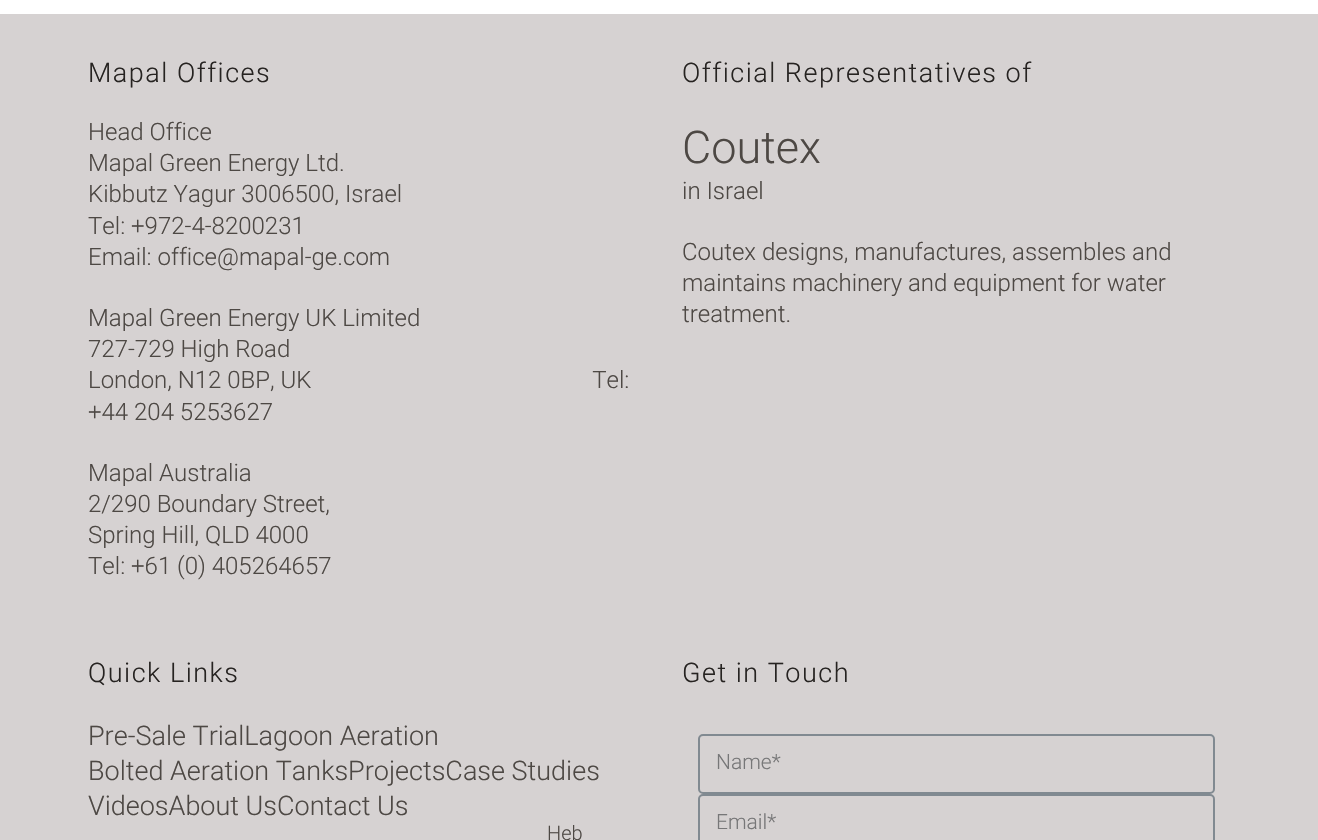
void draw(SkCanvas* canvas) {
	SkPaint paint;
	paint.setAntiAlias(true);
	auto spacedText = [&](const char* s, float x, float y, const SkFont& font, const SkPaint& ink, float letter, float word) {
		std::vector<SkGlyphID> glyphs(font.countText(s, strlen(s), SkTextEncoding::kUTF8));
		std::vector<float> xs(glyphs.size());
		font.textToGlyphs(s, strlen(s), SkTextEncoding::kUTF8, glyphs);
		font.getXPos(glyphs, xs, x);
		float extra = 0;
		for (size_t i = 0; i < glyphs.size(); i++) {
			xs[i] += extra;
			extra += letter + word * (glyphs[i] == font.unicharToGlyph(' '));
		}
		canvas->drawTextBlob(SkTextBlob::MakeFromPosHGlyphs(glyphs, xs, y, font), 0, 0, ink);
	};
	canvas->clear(0xffffffff);
	paint.setColor(0xffd6d2d2);
	canvas->drawRect(SkRect::MakeXYWH(0, 14, 1318, 826), paint);
	SkFont f1(fontMgr->matchFamilyStyle("Roboto", SkFontStyle(300, SkFontStyle::kNormal_Width, SkFontStyle::kUpright_Slant)), 27);
	f1.setSubpixel(true);
	paint.setColor(0xff262321);
	spacedText("Mapal Offices", 88, 82, f1, paint, 1.5, 0);
	SkFont f2(fontMgr->matchFamilyStyle("Roboto", SkFontStyle(300, SkFontStyle::kNormal_Width, SkFontStyle::kUpright_Slant)), 24);
	f2.setSubpixel(true);
	paint.setColor(0xff4d4844);
	canvas->drawString("Head Office", 88, 140, f2, paint);
	canvas->drawString("Mapal Green Energy Ltd.", 88, 171, f2, paint);
	canvas->drawString("Kibbutz Yagur 3006500, Israel", 88, 202, f2, paint);
	canvas->drawString("Tel: +972-4-8200231", 88, 234, f2, paint);
	canvas->drawString("Email: office@mapal-ge.com", 88, 265, f2, paint);
	canvas->drawString("Mapal Green Energy UK Limited", 88, 326, f2, paint);
	canvas->drawString("727-729 High Road", 88, 357, f2, paint);
	canvas->drawString("London, N12 0BP, UK                                                Tel:", 88, 388, f2, paint);
	canvas->drawString("+44 204 5253627", 88, 420, f2, paint);
	canvas->drawString("Mapal Australia", 88, 481, f2, paint);
	canvas->drawString("2/290 Boundary Street,", 88, 512, f2, paint);
	canvas->drawString("Spring Hill, QLD 4000", 88, 543, f2, paint);
	canvas->drawString("Tel: +61 (0) 405264657", 88, 574, f2, paint);
	paint.setColor(0xff262321);
	spacedText("Official Representatives of", 682, 82, f1, paint, 1.5, 0);
	SkFont f3(fontMgr->matchFamilyStyle("Roboto", SkFontStyle(300, SkFontStyle::kNormal_Width, SkFontStyle::kUpright_Slant)), 45);
	f3.setSubpixel(true);
	paint.setColor(0xff4d4844);
	canvas->drawString("Coutex", 682, 163, f3, paint);
	canvas->drawString("in Israel", 682, 199, f2, paint);
	canvas->drawString("Coutex designs, manufactures, assembles and", 682, 260, f2, paint);
	canvas->drawString("maintains machinery and equipment for water", 682, 291, f2, paint);
	canvas->drawString("treatment.", 682, 322, f2, paint);
	paint.setColor(0xff262321);
	spacedText("Quick Links", 88, 682, f1, paint, 1.5, 0);
	paint.setColor(0xff4d4844);
	canvas->drawString("Pre-Sale TrialLagoon Aeration", 88, 745, f1, paint);
	canvas->drawString("Bolted Aeration TanksProjectsCase Studies", 88, 780, f1, paint);
	canvas->drawString("VideosAbout UsContact Us", 88, 815, f1, paint);
	SkFont f4(fontMgr->matchFamilyStyle("Roboto", SkFontStyle(300, SkFontStyle::kNormal_Width, SkFontStyle::kUpright_Slant)), 20);
	f4.setSubpixel(true);
	canvas->drawString("Heb", 547, 840, f4, paint);
	paint.setColor(0xff262321);
	spacedText("Get in Touch", 682, 682, f1, paint, 1.5, 0);
	paint.setStroke(true);
	paint.setStrokeWidth(2);
	paint.setColor(0xff818a91);
	canvas->drawRoundRect(SkRect::MakeXYWH(699, 735, 515, 58), 4, 4, paint);
	SkFont f5(fontMgr->matchFamilyStyle("Roboto", SkFontStyle(300, SkFontStyle::kNormal_Width, SkFontStyle::kUpright_Slant)), 21);
	f5.setSubpixel(true);
	paint.setStroke(false);
	paint.setColor(0xff777778);
	canvas->drawString("Name*", 716, 769, f5, paint);
	paint.setStroke(true);
	paint.setColor(0xff818a91);
	canvas->drawRoundRect(SkRect::MakeXYWH(699, 795, 515, 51), 4, 4, paint);
	paint.setStroke(false);
	paint.setColor(0xff777778);
	canvas->drawString("Email*", 716, 829, f5, paint);
}
